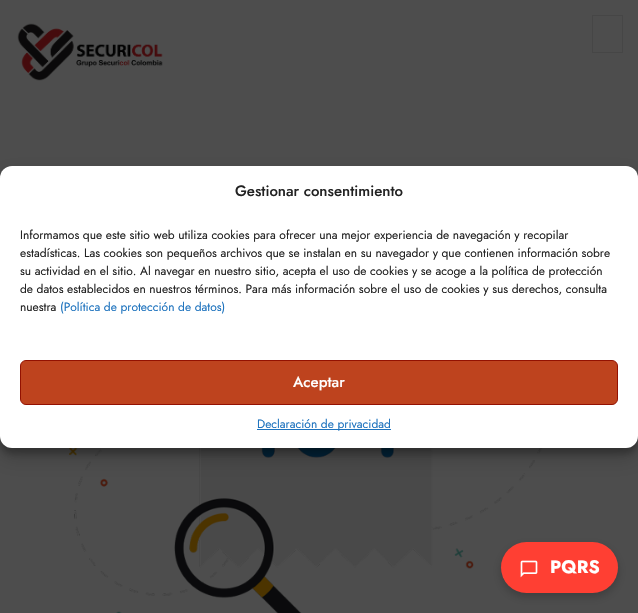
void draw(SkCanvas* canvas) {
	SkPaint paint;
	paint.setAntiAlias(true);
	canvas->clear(0xff4d4d4d);
	canvas->drawImageRect(SkImages::DeferredFromEncodedData(SkData::MakeFromFileName("img1.png")), SkRect::MakeXYWH(17, 23, 146, 58), SkSamplingOptions());
	paint.setStroke(true);
	paint.setStrokeWidth(1);
	paint.setColor(0xff464646);
	canvas->drawRect(SkRect::MakeXYWH(592.5, 15.5, 30, 37), paint);
	canvas->drawImageRect(SkImages::DeferredFromEncodedData(SkData::MakeFromFileName("img2.png")), SkRect::MakeXYWH(69, 448, 474, 165), SkSamplingOptions());
	paint.setStroke(false);
	paint.setColor(0x3b000000);
	paint.setMaskFilter(SkMaskFilter::MakeBlur(kNormal_SkBlurStyle, 3));
	canvas->drawRoundRect(SkRect::MakeXYWH(0, 172, 638, 282), 12, 12, paint);
	paint.setMaskFilter(nullptr);
	paint.setColor(0x30000000);
	paint.setMaskFilter(SkMaskFilter::MakeBlur(kNormal_SkBlurStyle, 10));
	canvas->drawRoundRect(SkRect::MakeXYWH(0, 176, 638, 282), 12, 12, paint);
	paint.setMaskFilter(nullptr);
	paint.setColor(0xffffffff);
	canvas->drawRoundRect(SkRect::MakeXYWH(0, 166, 638, 282), 12, 12, paint);
	SkFont f1(fontMgr->matchFamilyStyle("Jost", SkFontStyle(500, SkFontStyle::kNormal_Width, SkFontStyle::kUpright_Slant)), 15);
	f1.setSubpixel(true);
	paint.setColor(0xff222222);
	canvas->drawString("Gestionar consentimiento", 235, 196, f1, paint);
	SkFont f2(fontMgr->matchFamilyStyle("Jost", SkFontStyle::Normal()), 12);
	f2.setSubpixel(true);
	canvas->drawString("Informamos que este sitio web utiliza cookies para ofrecer una mejor experiencia de navegación y recopilar", 20, 239, f2, paint);
	canvas->drawString("estadísticas. Las cookies son pequeños archivos que se instalan en su navegador y que contienen información sobre", 20, 257, f2, paint);
	canvas->drawString("su actividad en el sitio. Al navegar en nuestro sitio, acepta el uso de cookies y se acoge a la política de protección", 20, 275, f2, paint);
	canvas->drawString("de datos establecidos en nuestros términos. Para más información sobre el uso de cookies y sus derechos, consulta", 20, 293, f2, paint);
	canvas->drawString("nuestra", 20, 311, f2, paint);
	paint.setColor(0xff1e73be);
	canvas->drawString("(Política de protección de datos)", 60, 311, f2, paint);
	paint.setColor(0xffbe431e);
	canvas->drawRoundRect(SkRect::MakeXYWH(20.5, 360.5, 597, 44), 5.5, 5.5, paint);
	paint.setStroke(true);
	paint.setColor(0xff931101);
	canvas->drawRoundRect(SkRect::MakeXYWH(20.5, 360.5, 597, 44), 5.5, 5.5, paint);
	paint.setStroke(false);
	paint.setColor(0xffffffff);
	canvas->drawString("Aceptar", 293, 387, f1, paint);
	paint.setColor(0xff1e73be);
	canvas->drawRect(SkRect::MakeXYWH(257, 429, 134, 1), paint);
	canvas->drawString("Declaración de privacidad", 257, 428, f2, paint);
	paint.setColor(0x33000000);
	paint.setMaskFilter(SkMaskFilter::MakeBlur(kNormal_SkBlurStyle, 4));
	canvas->drawRoundRect(SkRect::MakeXYWH(501, 546, 117, 51), 25.5, 25.5, paint);
	paint.setMaskFilter(nullptr);
	paint.setColor(0xffff3f33);
	canvas->drawRoundRect(SkRect::MakeXYWH(501, 542, 117, 51), 25.5, 25.5, paint);
	canvas->drawImageRect(SkImages::DeferredFromEncodedData(SkData::MakeFromFileName("img3.png")), SkRect::MakeXYWH(520, 560, 18, 18), SkSamplingOptions());
	SkFont f3(fontMgr->matchFamilyStyle("Jost", SkFontStyle::Bold()), 18);
	f3.setSubpixel(true);
	paint.setColor(0xffffffff);
	canvas->drawString("PQRS", 550, 573, f3, paint);
}
